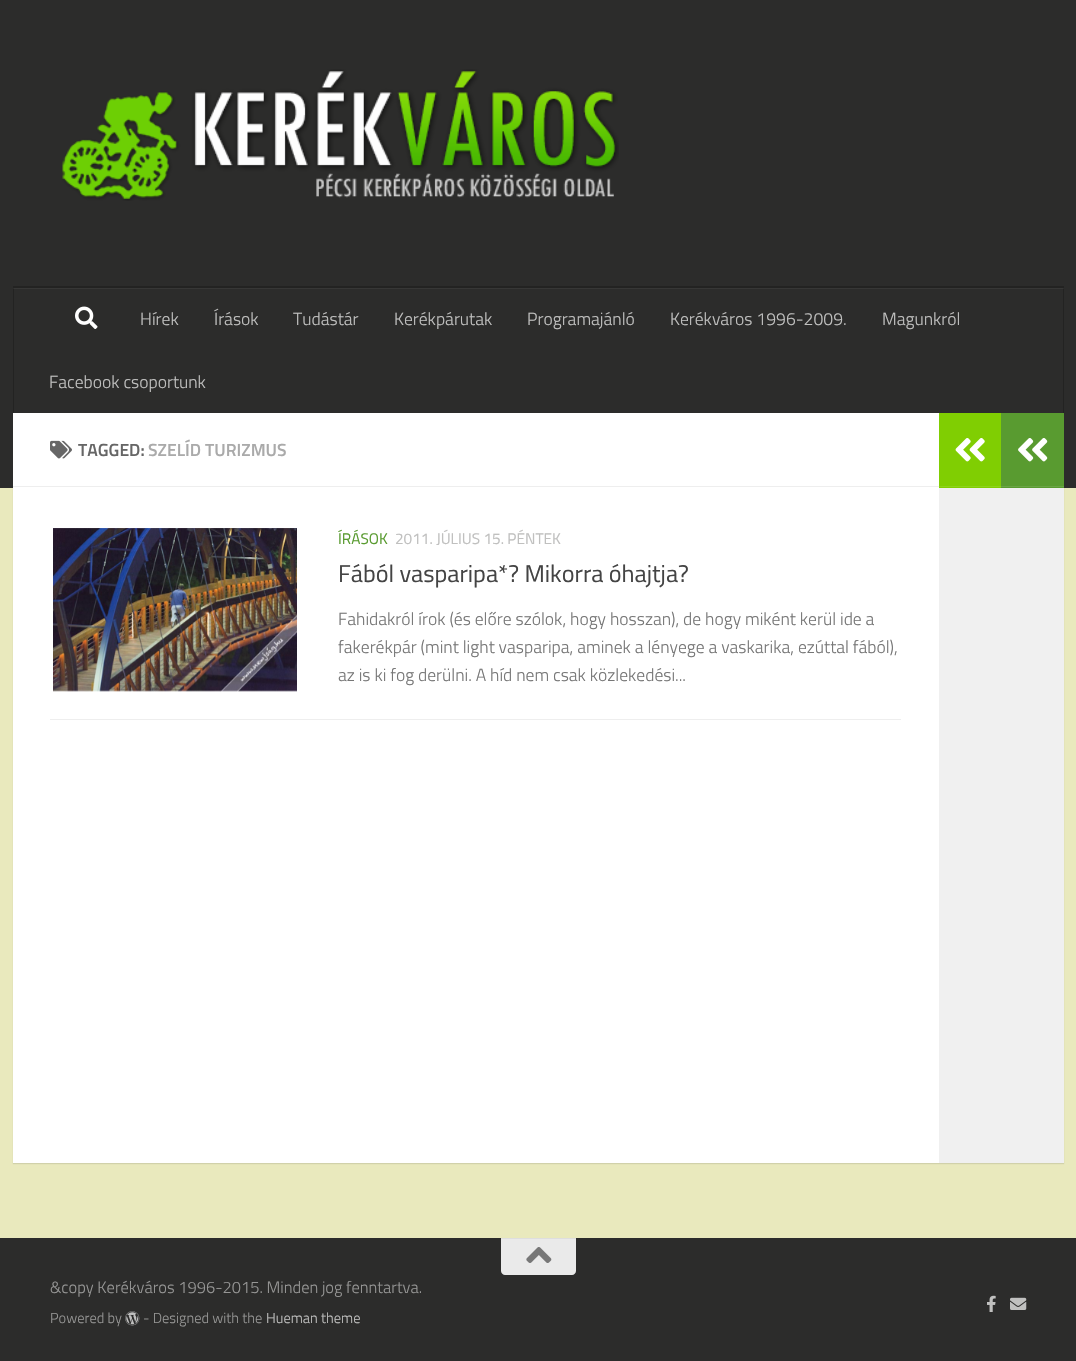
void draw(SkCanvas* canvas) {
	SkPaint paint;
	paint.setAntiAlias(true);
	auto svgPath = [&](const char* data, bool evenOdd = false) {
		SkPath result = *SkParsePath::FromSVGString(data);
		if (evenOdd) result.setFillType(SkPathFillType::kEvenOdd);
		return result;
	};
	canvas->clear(0xffe9e9bd);
	paint.setColor(0x1a000000);
	paint.setMaskFilter(SkMaskFilter::MakeBlur(kNormal_SkBlurStyle, 0.5));
	canvas->drawRect(SkRect::MakeXYWH(13, 414, 1051, 750), paint);
	paint.setMaskFilter(nullptr);
	paint.setColor(0xff2c2c2b);
	canvas->drawRect(SkRect::MakeXYWH(0, 0, 1076, 488), paint);
	paint.setColor(0xff373736);
	canvas->drawRect(SkRect::MakeXYWH(13, 288, 1051, 1), paint);
	canvas->drawImageRect(SkImages::DeferredFromEncodedData(SkData::MakeFromFileName("img1.png")), SkRect::MakeXYWH(62, 69, 557, 132), SkSamplingOptions());
	paint.setColor(0xff232322);
	canvas->drawPath(svgPath("M13 286V288H1064V411V286Z"), paint);
	canvas->drawRect(SkRect::MakeXYWH(1063, 288, 1, 125), paint);
	paint.setColor(0xff2e2e2d);
	canvas->drawRect(SkRect::MakeXYWH(1063, 288, 1, 1), paint);
	paint.setColor(0xff232322);
	canvas->drawRect(SkRect::MakeXYWH(13, 288, 1, 125), paint);
	paint.setColor(0xff2e2e2d);
	canvas->drawRect(SkRect::MakeXYWH(13, 288, 1, 1), paint);
	canvas->drawImageRect(SkImages::DeferredFromEncodedData(SkData::MakeFromFileName("img2.png")), SkRect::MakeXYWH(75, 306, 23, 23), SkSamplingOptions());
	SkFont f1(fontMgr->matchFamilyStyle("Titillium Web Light", SkFontStyle(300, SkFontStyle::kNormal_Width, SkFontStyle::kUpright_Slant)), 17.6);
	f1.setSubpixel(true);
	paint.setColor(0xffc0c0bf);
	canvas->drawString("Hírek", 140, 325, f1, paint);
	canvas->drawString("Írások", 214, 325, f1, paint);
	canvas->drawString("Tudástár", 293, 325, f1, paint);
	canvas->drawString("Kerékpárutak", 394, 325, f1, paint);
	canvas->drawString("Programajánló", 527, 325, f1, paint);
	canvas->drawString("Kerékváros 1996-2009.", 670, 325, f1, paint);
	canvas->drawString("Magunkról", 882, 325, f1, paint);
	canvas->drawString("Facebook csoportunk", 49, 388, f1, paint);
	paint.setColor(0xffffffff);
	canvas->drawRect(SkRect::MakeXYWH(13, 413, 926, 750), paint);
	paint.setColor(0xffeeeeee);
	canvas->drawRect(SkRect::MakeXYWH(13, 486, 926, 1), paint);
	canvas->drawImageRect(SkImages::DeferredFromEncodedData(SkData::MakeFromFileName("img3.png")), SkRect::MakeXYWH(50, 440, 22, 19), SkSamplingOptions());
	SkFont f2(fontMgr->matchFamilyStyle("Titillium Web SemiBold", SkFontStyle(600, SkFontStyle::kNormal_Width, SkFontStyle::kUpright_Slant)), 17.6);
	f2.setSubpixel(true);
	paint.setColor(0xff666666);
	canvas->drawString("TAGGED:", 78, 456, f2, paint);
	paint.setColor(0xffaaaaaa);
	canvas->drawString("SZELÍD TURIZMUS", 148, 456, f2, paint);
	paint.setColor(0xffeeeeee);
	canvas->drawRect(SkRect::MakeXYWH(50, 719, 851, 1), paint);
	canvas->drawImageRect(SkImages::DeferredFromEncodedData(SkData::MakeFromFileName("img4.png")), SkRect::MakeXYWH(53, 528, 244, 164), SkSamplingOptions());
	SkFont f3(fontMgr->matchFamilyStyle("Titillium Web", SkFontStyle::Normal()), 15.4);
	f3.setSubpixel(true);
	paint.setColor(0xff599b30);
	canvas->drawString("ÍRÁSOK", 338, 544, f3, paint);
	paint.setColor(0xffc0c0bf);
	canvas->drawString("2011. JÚLIUS 15. PÉNTEK", 395, 544, f3, paint);
	SkFont f4(fontMgr->matchFamilyStyle("Titillium Web", SkFontStyle::Normal()), 24.25);
	f4.setSubpixel(true);
	paint.setColor(0xff444444);
	canvas->drawString("Fából vasparipa*? Mikorra óhajtja?", 338, 582, f4, paint);
	paint.setColor(0xff767676);
	canvas->drawString("Fahidakról írok (és előre szólok, hogy hosszan), de hogy miként kerül ide a", 338, 625, f1, paint);
	canvas->drawString("fakerékpár (mint light vasparipa, aminek a lényege a vaskarika, ezúttal fából),", 338, 653, f1, paint);
	canvas->drawString("az is ki fog derülni. A híd nem csak közlekedési...", 338, 681, f1, paint);
	paint.setColor(0xff80ce02);
	canvas->drawRect(SkRect::MakeXYWH(939, 413, 62, 75), paint);
	paint.setColor(0xff8dd31b);
	canvas->drawRect(SkRect::MakeXYWH(939, 486, 62, 1), paint);
	canvas->drawImageRect(SkImages::DeferredFromEncodedData(SkData::MakeFromFileName("img5.png")), SkRect::MakeXYWH(955, 438, 30, 24), SkSamplingOptions());
	paint.setColor(0xff599b30);
	canvas->drawRect(SkRect::MakeXYWH(1001, 413, 63, 75), paint);
	paint.setColor(0xff6aa545);
	canvas->drawRect(SkRect::MakeXYWH(1001, 486, 63, 1), paint);
	canvas->drawImageRect(SkImages::DeferredFromEncodedData(SkData::MakeFromFileName("img6.png")), SkRect::MakeXYWH(1018, 438, 30, 24), SkSamplingOptions());
	paint.setColor(0xfff0f0f0);
	canvas->drawRect(SkRect::MakeXYWH(939, 488, 125, 675), paint);
	paint.setColor(0xff2c2c2b);
	canvas->drawRect(SkRect::MakeXYWH(0, 1238, 1076, 123), paint);
	paint.setColor(0xffeaeaea);
	canvas->drawPath(svgPath("M501 1238H576V1271C576 1273 574 1275 572 1275H505C503 1275 501 1273 501 1271Z"), paint);
	paint.setColor(0xffdedede);
	canvas->drawRect(SkRect::MakeXYWH(501, 1238, 75, 1), paint);
	canvas->drawImageRect(SkImages::DeferredFromEncodedData(SkData::MakeFromFileName("img7.png")), SkRect::MakeXYWH(526, 1247, 26, 16), SkSamplingOptions());
	SkFont f5(fontMgr->matchFamilyStyle("Titillium Web Light", SkFontStyle(300, SkFontStyle::kNormal_Width, SkFontStyle::kUpright_Slant)), 16.5);
	f5.setSubpixel(true);
	paint.setColor(0xff969695);
	canvas->drawString("&copy Kerékváros 1996-2015. Minden jog fenntartva.", 50, 1293, f5, paint);
	SkFont f6(fontMgr->matchFamilyStyle("Titillium Web Light", SkFontStyle(300, SkFontStyle::kNormal_Width, SkFontStyle::kUpright_Slant)), 14.5);
	f6.setSubpixel(true);
	canvas->drawString("Powered by", 50, 1323, f6, paint);
	canvas->drawImageRect(SkImages::DeferredFromEncodedData(SkData::MakeFromFileName("img8.png")), SkRect::MakeXYWH(125, 1311, 15, 15), SkSamplingOptions());
	canvas->drawString("- Designed with the", 143, 1323, f6, paint);
	paint.setColor(0xffc0c0bf);
	canvas->drawString("Hueman theme", 266, 1323, f6, paint);
	canvas->drawImageRect(SkImages::DeferredFromEncodedData(SkData::MakeFromFileName("img9.png")), SkRect::MakeXYWH(987, 1295, 9, 17), SkSamplingOptions());
	canvas->drawImageRect(SkImages::DeferredFromEncodedData(SkData::MakeFromFileName("img10.png")), SkRect::MakeXYWH(1010, 1297, 17, 13), SkSamplingOptions());
}
